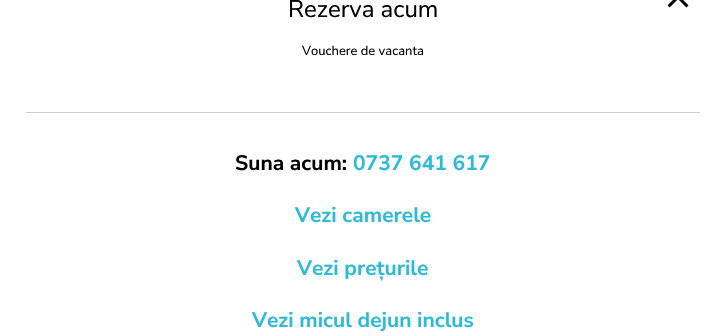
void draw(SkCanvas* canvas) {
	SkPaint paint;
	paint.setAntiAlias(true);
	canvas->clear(0xffffffff);
	SkFont f1(fontMgr->matchFamilyStyle("Nunito Sans", SkFontStyle::Normal()), 24);
	f1.setSubpixel(true);
	paint.setColor(0xff000000);
	canvas->drawString("Rezerva acum", 288, 17, f1, paint);
	canvas->drawImageRect(SkImages::DeferredFromEncodedData(SkData::MakeFromFileName("img1.png")), SkRect::MakeXYWH(667, 0, 22, 8), SkSamplingOptions());
	SkFont f2(fontMgr->matchFamilyStyle("Nunito Sans", SkFontStyle::Normal()), 13);
	f2.setSubpixel(true);
	canvas->drawString("Vouchere de vacanta", 302, 55, f2, paint);
	paint.setColor(0xffcccccc);
	canvas->drawRect(SkRect::MakeXYWH(26, 112, 674, 1), paint);
	SkFont f3(fontMgr->matchFamilyStyle("Nunito Sans", SkFontStyle::Bold()), 21);
	f3.setSubpixel(true);
	paint.setColor(0xff000000);
	canvas->drawString("Suna acum:", 235, 170, f3, paint);
	paint.setColor(0xff2bbad8);
	canvas->drawString("0737 641 617", 353, 170, f3, paint);
	canvas->drawString("Vezi camerele", 295, 222, f3, paint);
	canvas->drawString("Vezi prețurile", 297, 275, f3, paint);
	canvas->drawString("Vezi micul dejun inclus", 252, 327, f3, paint);
}
